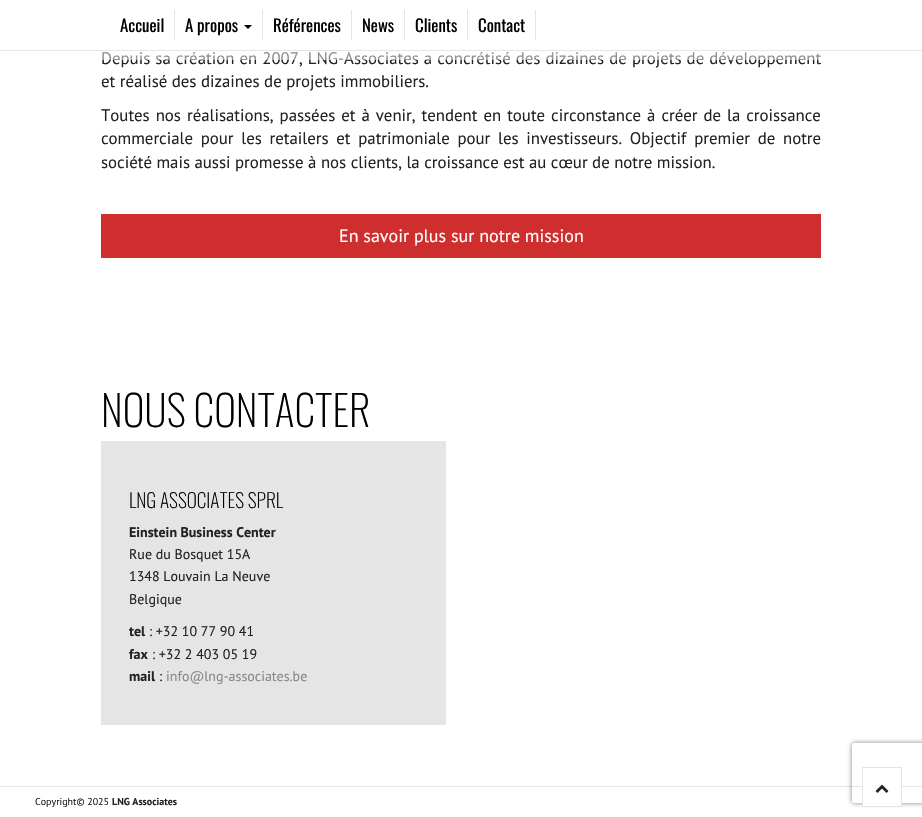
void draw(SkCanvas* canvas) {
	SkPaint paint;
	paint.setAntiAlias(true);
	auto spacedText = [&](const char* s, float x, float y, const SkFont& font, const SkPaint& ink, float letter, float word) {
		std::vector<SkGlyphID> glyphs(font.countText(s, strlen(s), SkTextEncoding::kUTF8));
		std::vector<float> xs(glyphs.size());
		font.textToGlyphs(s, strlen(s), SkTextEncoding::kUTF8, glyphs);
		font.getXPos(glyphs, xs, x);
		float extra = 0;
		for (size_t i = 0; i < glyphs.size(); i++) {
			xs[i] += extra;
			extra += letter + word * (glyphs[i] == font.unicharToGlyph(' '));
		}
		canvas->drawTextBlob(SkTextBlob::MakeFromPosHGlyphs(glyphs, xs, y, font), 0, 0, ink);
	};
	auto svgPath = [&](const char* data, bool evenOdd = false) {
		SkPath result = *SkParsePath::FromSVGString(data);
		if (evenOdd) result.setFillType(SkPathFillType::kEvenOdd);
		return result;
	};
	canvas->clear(0xffffffff);
	paint.setColor(0xffe5e5e5);
	canvas->drawRect(SkRect::MakeXYWH(0, 50, 922, 1), paint);
	canvas->drawRect(SkRect::MakeXYWH(174, 10, 1, 30), paint);
	SkFont f1(fontMgr->matchFamilyStyle("Oswald", SkFontStyle::Normal()), 16.8);
	f1.setSubpixel(true);
	paint.setColor(0xff000000);
	canvas->drawString("Accueil", 120, 32, f1, paint);
	paint.setColor(0xffe5e5e5);
	canvas->drawRect(SkRect::MakeXYWH(262, 10, 1, 30), paint);
	paint.setColor(0xff000000);
	canvas->drawString("A propos", 185, 32, f1, paint);
	canvas->drawPath(svgPath("M244 25H252L248 29Z"), paint);
	paint.setColor(0xffe5e5e5);
	canvas->drawRect(SkRect::MakeXYWH(351, 10, 1, 30), paint);
	paint.setColor(0xff000000);
	canvas->drawString("Références", 273, 32, f1, paint);
	paint.setColor(0xffe5e5e5);
	canvas->drawRect(SkRect::MakeXYWH(404, 10, 1, 30), paint);
	paint.setColor(0xff000000);
	canvas->drawString("News", 362, 32, f1, paint);
	paint.setColor(0xffe5e5e5);
	canvas->drawRect(SkRect::MakeXYWH(467, 10, 1, 30), paint);
	paint.setColor(0xff000000);
	canvas->drawString("Clients", 415, 32, f1, paint);
	paint.setColor(0xffe5e5e5);
	canvas->drawRect(SkRect::MakeXYWH(535, 10, 1, 30), paint);
	paint.setColor(0xff000000);
	canvas->drawString("Contact", 478, 32, f1, paint);
	SkFont f2(fontMgr->matchFamilyStyle("PT Sans", SkFontStyle::Normal()), 16.8);
	f2.setSubpixel(true);
	paint.setColor(0xff222222);
	spacedText("Depuis sa création en 2007, LNG-Associates a concrétisé des dizaines de projets de développement", 101, 64, f2, paint, 0, 0.6);
	paint.setColor(0x80ffffff);
	canvas->drawRect(SkRect::MakeXYWH(102, 51, 719, 9), paint);
	paint.setColor(0xff222222);
	canvas->drawString("et réalisé des dizaines de projets immobiliers.", 101, 87, f2, paint);
	spacedText("Toutes nos réalisations, passées et à venir, tendent en toute circonstance à créer de la croissance", 101, 121, f2, paint, 0, 1.5);
	spacedText("commerciale pour les retailers et patrimoniale pour les investisseurs. Objectif premier de notre", 101, 144, f2, paint, 0, 3.25);
	canvas->drawString("société mais aussi promesse à nos clients, la croissance est au cœur de notre mission.", 101, 168, f2, paint);
	paint.setColor(0xffcf2e2e);
	canvas->drawRect(SkRect::MakeXYWH(101, 214, 720, 44), paint);
	SkFont f3(fontMgr->matchFamilyStyle("PT Sans", SkFontStyle::Normal()), 18);
	f3.setSubpixel(true);
	paint.setColor(0xffffffff);
	canvas->drawString("En savoir plus sur notre mission", 339, 242, f3, paint);
	SkFont f4(fontMgr->matchFamilyStyle("Oswald", SkFontStyle(200, SkFontStyle::kNormal_Width, SkFontStyle::kUpright_Slant)), 42);
	f4.setSubpixel(true);
	paint.setColor(0xff000000);
	canvas->drawString("NOUS CONTACTER", 101, 427, f4, paint);
	paint.setColor(0xffe5e5e5);
	canvas->drawRect(SkRect::MakeXYWH(101, 441, 345, 284), paint);
	SkFont f5(fontMgr->matchFamilyStyle("Oswald", SkFontStyle(200, SkFontStyle::kNormal_Width, SkFontStyle::kUpright_Slant)), 19.5);
	f5.setSubpixel(true);
	paint.setColor(0xff000000);
	canvas->drawString("LNG ASSOCIATES SPRL", 129, 508, f5, paint);
	SkFont f6(fontMgr->matchFamilyStyle("PT Sans", SkFontStyle::Bold()), 14);
	f6.setSubpixel(true);
	paint.setColor(0xff222222);
	canvas->drawString("Einstein Business Center", 129, 537, f6, paint);
	SkFont f7(fontMgr->matchFamilyStyle("PT Sans", SkFontStyle::Normal()), 14);
	f7.setSubpixel(true);
	canvas->drawString("Rue du Bosquet 15A", 129, 559, f7, paint);
	canvas->drawString("1348 Louvain La Neuve", 129, 581, f7, paint);
	canvas->drawString("Belgique", 129, 604, f7, paint);
	canvas->drawString("tel", 129, 636, f6, paint);
	canvas->drawString(": +32 10 77 90 41", 149, 636, f7, paint);
	canvas->drawString("fax", 129, 659, f6, paint);
	canvas->drawString(": +32 2 403 05 19", 152, 659, f7, paint);
	canvas->drawString("mail", 129, 681, f6, paint);
	canvas->drawString(":", 159, 681, f7, paint);
	paint.setColor(0xff888888);
	canvas->drawString("info@lng-associates.be", 166, 681, f7, paint);
	paint.setColor(0xffe5e5e5);
	canvas->drawRect(SkRect::MakeXYWH(0, 786, 922, 1), paint);
	SkFont f8(fontMgr->matchFamilyStyle("PT Sans", SkFontStyle::Normal()), 10);
	f8.setSubpixel(true);
	paint.setColor(0xff222222);
	canvas->drawString("Copyright© 2025", 35, 805, f8, paint);
	SkFont f9(fontMgr->matchFamilyStyle("PT Sans", SkFontStyle::Bold()), 10);
	f9.setSubpixel(true);
	canvas->drawString("LNG Associates", 112, 805, f9, paint);
	canvas->save();
	canvas->clipPath(svgPath("M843 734H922V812H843ZM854 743H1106C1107 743 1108 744 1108 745V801C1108 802 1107 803 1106 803H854C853 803 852 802 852 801V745C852 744 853 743 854 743Z", true), true);
	paint.setColor(0xff808080);
	paint.setMaskFilter(SkMaskFilter::MakeBlur(kNormal_SkBlurStyle, 2.5));
	canvas->drawRoundRect(SkRect::MakeXYWH(852, 743, 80, 60), 2, 2, paint);
	paint.setMaskFilter(nullptr);
	canvas->restore();
	paint.setColor(0xffffffff);
	canvas->drawRect(SkRect::MakeXYWH(863, 786, 38, 20), paint);
	paint.setStroke(true);
	paint.setStrokeWidth(1);
	paint.setColor(0xffe5e5e5);
	canvas->drawRect(SkRect::MakeXYWH(862.5, 767.5, 39, 39), paint);
	canvas->drawImageRect(SkImages::DeferredFromEncodedData(SkData::MakeFromFileName("img1.png")), SkRect::MakeXYWH(875, 784, 14, 9), SkSamplingOptions());
}
